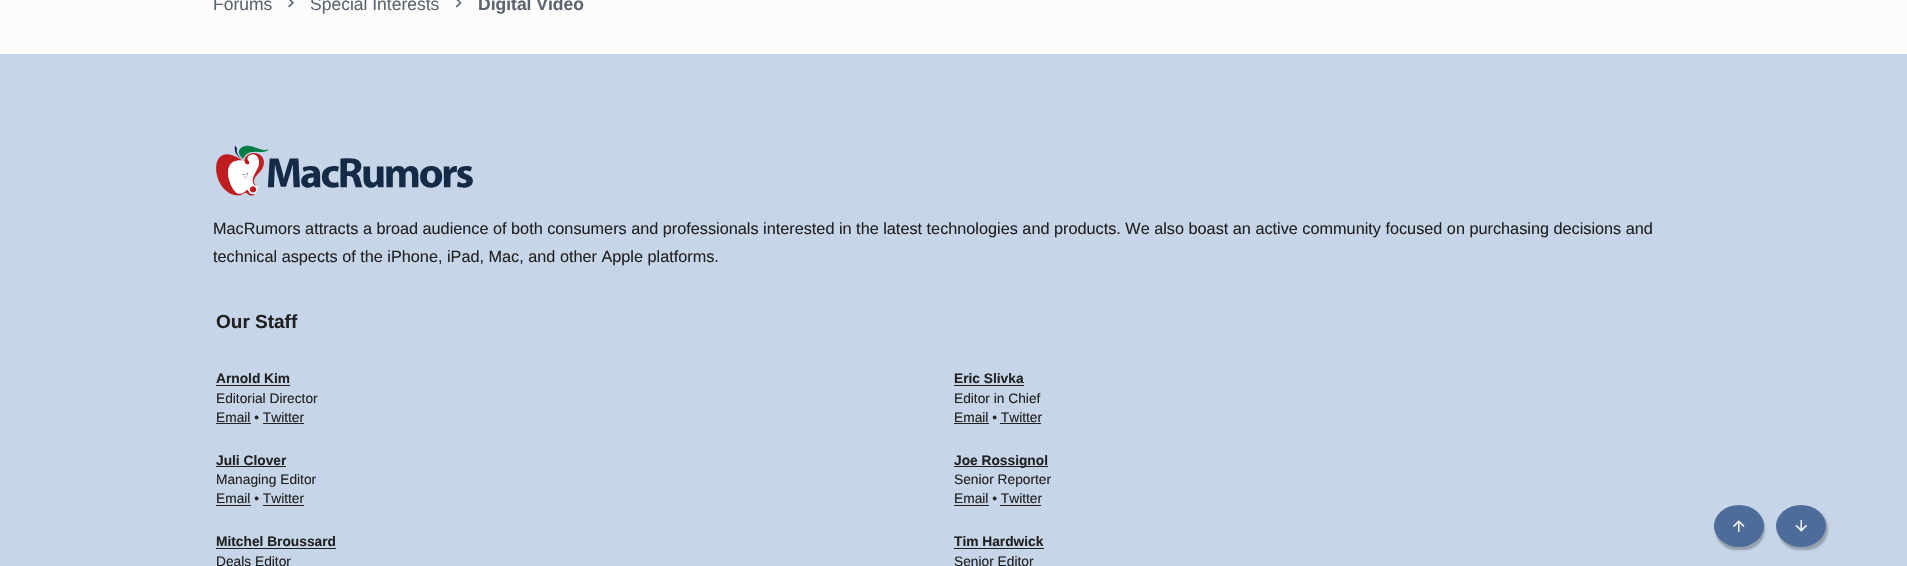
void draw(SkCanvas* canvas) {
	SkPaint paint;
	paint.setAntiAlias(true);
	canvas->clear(0xfffcfcfc);
	SkFont f1(fontMgr->matchFamilyStyle("Liberation Sans", SkFontStyle::Normal()), 17.5);
	f1.setSubpixel(true);
	paint.setColor(0xff5c656f);
	canvas->drawString("Forums", 213, 10, f1, paint);
	canvas->drawImageRect(SkImages::DeferredFromEncodedData(SkData::MakeFromFileName("img1.png")), SkRect::MakeXYWH(288, 0, 6, 8), SkSamplingOptions());
	canvas->drawString("Special Interests", 310, 10, f1, paint);
	canvas->drawImageRect(SkImages::DeferredFromEncodedData(SkData::MakeFromFileName("img2.png")), SkRect::MakeXYWH(455, 0, 7, 8), SkSamplingOptions());
	SkFont f2(fontMgr->matchFamilyStyle("Liberation Sans", SkFontStyle::Bold()), 17.5);
	f2.setSubpixel(true);
	canvas->drawString("Digital Video", 478, 10, f2, paint);
	paint.setColor(0xffc6d5e8);
	canvas->drawRect(SkRect::MakeXYWH(0, 54, 1907, 512), paint);
	canvas->drawImageRect(SkImages::DeferredFromEncodedData(SkData::MakeFromFileName("img3.png")), SkRect::MakeXYWH(216, 145, 257, 51), SkSamplingOptions());
	SkFont f3(fontMgr->matchFamilyStyle("Liberation Sans", SkFontStyle::Normal()), 16.25);
	f3.setSubpixel(true);
	paint.setColor(0xff212121);
	canvas->drawString("MacRumors attracts a broad audience of both consumers and professionals interested in the latest technologies and products. We also boast an active community focused on purchasing decisions and", 213, 234, f3, paint);
	canvas->drawString("technical aspects of the iPhone, iPad, Mac, and other Apple platforms.", 213, 262, f3, paint);
	SkFont f4(fontMgr->matchFamilyStyle("Liberation Sans", SkFontStyle::Bold()), 19);
	f4.setSubpixel(true);
	canvas->drawString("Our Staff", 216, 328, f4, paint);
	SkFont f5(fontMgr->matchFamilyStyle("Liberation Sans", SkFontStyle::Bold()), 13.75);
	f5.setSubpixel(true);
	canvas->drawString("Arnold Kim", 216, 383, f5, paint);
	canvas->drawRect(SkRect::MakeXYWH(216, 385, 74, 1), paint);
	SkFont f6(fontMgr->matchFamilyStyle("Liberation Sans", SkFontStyle::Normal()), 13.75);
	f6.setSubpixel(true);
	canvas->drawString("Editorial Director", 216, 403, f6, paint);
	canvas->drawString("Email • Twitter", 216, 422, f6, paint);
	canvas->drawRect(SkRect::MakeXYWH(216, 423, 35, 1), paint);
	canvas->drawRect(SkRect::MakeXYWH(263, 423, 41, 1), paint);
	canvas->drawString("Eric Slivka", 954, 383, f5, paint);
	canvas->drawRect(SkRect::MakeXYWH(954, 385, 70, 1), paint);
	canvas->drawString("Editor in Chief", 954, 403, f6, paint);
	canvas->drawString("Email • Twitter", 954, 422, f6, paint);
	canvas->drawRect(SkRect::MakeXYWH(954, 423, 35, 1), paint);
	canvas->drawRect(SkRect::MakeXYWH(1000, 423, 41, 1), paint);
	canvas->drawString("Juli Clover", 216, 465, f5, paint);
	canvas->drawRect(SkRect::MakeXYWH(216, 466, 70, 1), paint);
	canvas->drawString("Managing Editor", 216, 484, f6, paint);
	canvas->drawString("Email • Twitter", 216, 503, f6, paint);
	canvas->drawRect(SkRect::MakeXYWH(216, 505, 35, 1), paint);
	canvas->drawRect(SkRect::MakeXYWH(263, 505, 41, 1), paint);
	canvas->drawRect(SkRect::MakeXYWH(954, 466, 94, 1), paint);
	canvas->drawString("Joe Rossignol", 954, 465, f5, paint);
	canvas->drawString("Senior Reporter", 954, 484, f6, paint);
	canvas->drawString("Email • Twitter", 954, 503, f6, paint);
	canvas->drawRect(SkRect::MakeXYWH(954, 505, 35, 1), paint);
	canvas->drawRect(SkRect::MakeXYWH(1000, 505, 41, 1), paint);
	canvas->drawString("Mitchel Broussard", 216, 546, f5, paint);
	canvas->drawRect(SkRect::MakeXYWH(216, 548, 120, 1), paint);
	canvas->drawString("Deals Editor", 216, 566, f6, paint);
	canvas->drawString("Tim Hardwick", 954, 546, f5, paint);
	canvas->drawRect(SkRect::MakeXYWH(954, 548, 90, 1), paint);
	canvas->drawString("Senior Editor", 954, 566, f6, paint);
	paint.setColor(0x40000000);
	paint.setMaskFilter(SkMaskFilter::MakeBlur(kNormal_SkBlurStyle, 1));
	canvas->drawRoundRect(SkRect::MakeXYWH(1715, 508, 50, 42), 21, 21, paint);
	paint.setMaskFilter(nullptr);
	paint.setColor(0xff4d6c99);
	canvas->drawOval(SkRect::MakeXYWH(1714, 505, 50, 42), paint);
	canvas->drawImageRect(SkImages::DeferredFromEncodedData(SkData::MakeFromFileName("img4.png")), SkRect::MakeXYWH(1733, 520, 12, 12), SkSamplingOptions());
	paint.setColor(0x40000000);
	paint.setMaskFilter(SkMaskFilter::MakeBlur(kNormal_SkBlurStyle, 1));
	canvas->drawRoundRect(SkRect::MakeXYWH(1778, 508, 50, 42), 21, 21, paint);
	paint.setMaskFilter(nullptr);
	paint.setColor(0xff4d6c99);
	canvas->drawOval(SkRect::MakeXYWH(1776, 505, 50, 42), paint);
	canvas->drawImageRect(SkImages::DeferredFromEncodedData(SkData::MakeFromFileName("img5.png")), SkRect::MakeXYWH(1795, 520, 12, 12), SkSamplingOptions());
}
